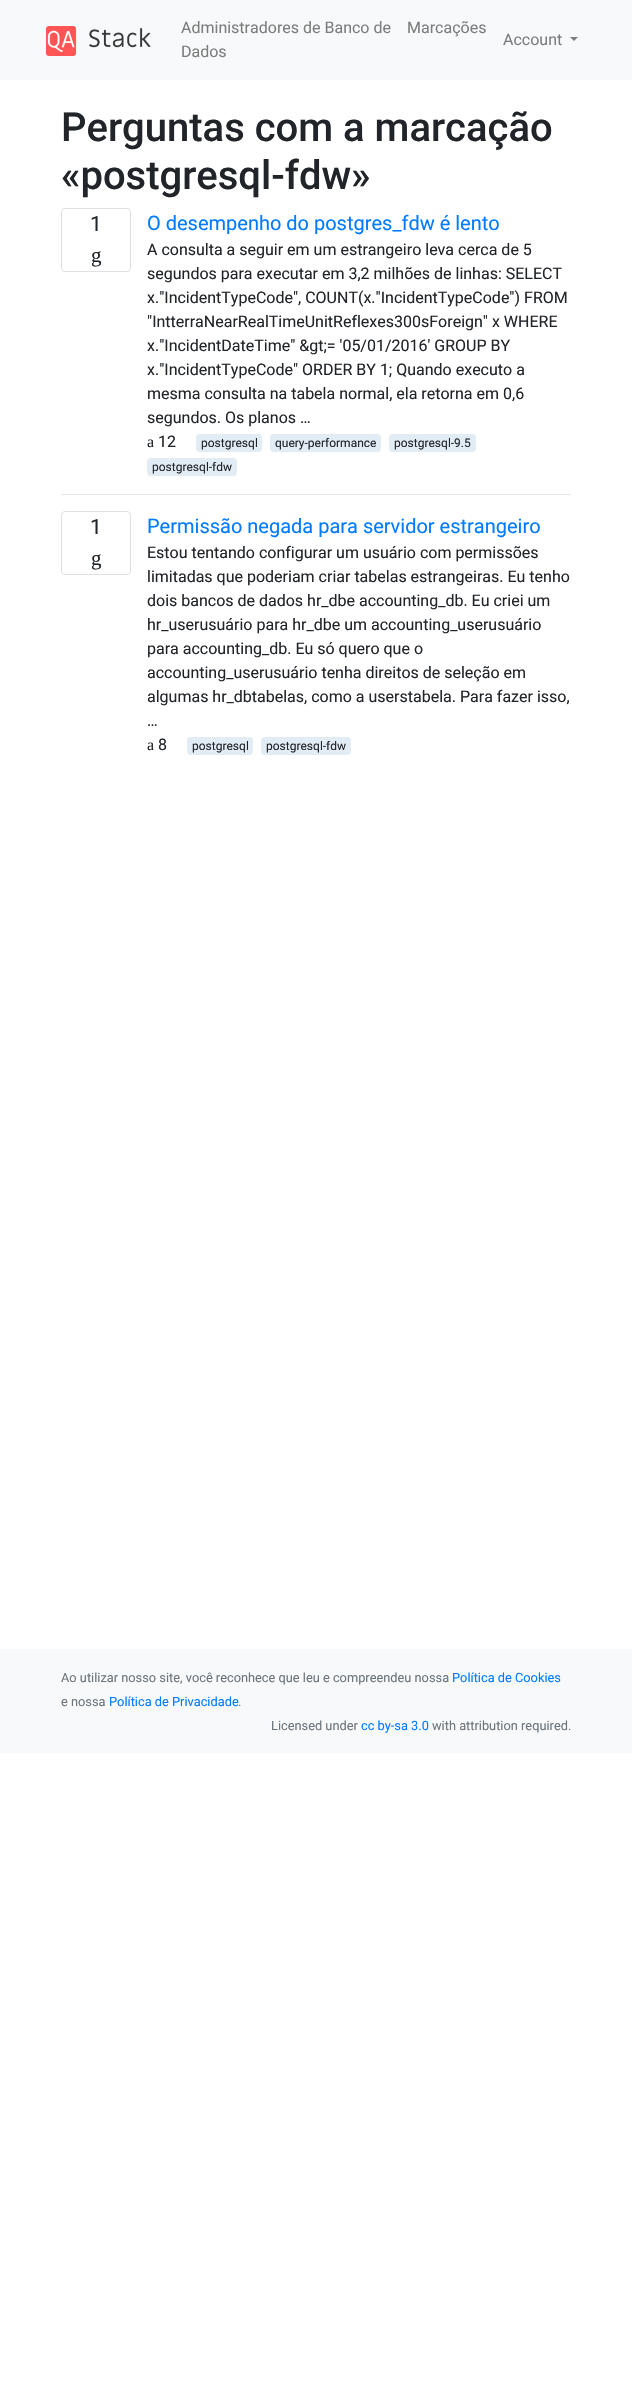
void draw(SkCanvas* canvas) {
	SkPaint paint;
	paint.setAntiAlias(true);
	auto svgPath = [&](const char* data, bool evenOdd = false) {
		SkPath result = *SkParsePath::FromSVGString(data);
		if (evenOdd) result.setFillType(SkPathFillType::kEvenOdd);
		return result;
	};
	canvas->clear(0xffffffff);
	paint.setColor(0xfff8f9fa);
	canvas->drawRect(SkRect::MakeXYWH(0, 0, 632, 80), paint);
	canvas->drawImageRect(SkImages::DeferredFromEncodedData(SkData::MakeFromFileName("img1.png")), SkRect::MakeXYWH(46, 26, 105, 30), SkSamplingOptions());
	SkFont f1(fontMgr->matchFamilyStyle("Roboto", SkFontStyle::Normal()), 16);
	f1.setSubpixel(true);
	paint.setColor(0xff7c7d7d);
	canvas->drawString("Administradores de Banco de", 181, 33, f1, paint);
	canvas->drawString("Dados", 181, 57, f1, paint);
	canvas->drawString("Marcações", 407, 33, f1, paint);
	canvas->drawString("Account", 503, 45, f1, paint);
	canvas->drawPath(svgPath("M570 37H578L574 41Z"), paint);
	SkFont f2(fontMgr->matchFamilyStyle("Roboto", SkFontStyle(500, SkFontStyle::kNormal_Width, SkFontStyle::kUpright_Slant)), 40);
	f2.setSubpixel(true);
	paint.setColor(0xff212529);
	canvas->drawString("Perguntas com a marcação", 61, 141, f2, paint);
	canvas->drawString("«postgresql-fdw»", 61, 189, f2, paint);
	paint.setStroke(true);
	paint.setStrokeWidth(1);
	paint.setColor(0xffdee2e6);
	canvas->drawRoundRect(SkRect::MakeXYWH(61.5, 208.5, 69, 63), 3.5, 3.5, paint);
	SkFont f3(fontMgr->matchFamilyStyle("Roboto", SkFontStyle::Normal()), 21);
	f3.setSubpixel(true);
	paint.setStroke(false);
	paint.setColor(0xff212529);
	canvas->drawString("1", 90, 231, f3, paint);
	SkFont f4(fontMgr->matchFamilyStyle("Liberation Serif", SkFontStyle::Normal()), 21);
	f4.setSubpixel(true);
	canvas->drawString("g", 91, 262, f4, paint);
	SkFont f5(fontMgr->matchFamilyStyle("Roboto", SkFontStyle::Normal()), 20);
	f5.setSubpixel(true);
	paint.setColor(0xff007bff);
	canvas->drawString("O desempenho do postgres_fdw é lento", 147, 230, f5, paint);
	paint.setColor(0xff212529);
	canvas->drawString("A consulta a seguir em um estrangeiro leva cerca de 5", 147, 255, f1, paint);
	canvas->drawString("segundos para executar em 3,2 milhões de linhas: SELECT", 147, 279, f1, paint);
	canvas->drawString("x.\"IncidentTypeCode\", COUNT(x.\"IncidentTypeCode\") FROM", 147, 303, f1, paint);
	canvas->drawString("\"IntterraNearRealTimeUnitReflexes300sForeign\" x WHERE", 147, 327, f1, paint);
	canvas->drawString("x.\"IncidentDateTime\" &gt;= '05/01/2016' GROUP BY", 147, 351, f1, paint);
	canvas->drawString("x.\"IncidentTypeCode\" ORDER BY 1; Quando executo a", 147, 375, f1, paint);
	canvas->drawString("mesma consulta na tabela normal, ela retorna em 0,6", 147, 399, f1, paint);
	canvas->drawString("segundos. Os planos …", 147, 423, f1, paint);
	canvas->drawString("12", 158, 447, f1, paint);
	SkFont f6(fontMgr->matchFamilyStyle("Liberation Serif", SkFontStyle::Normal()), 16);
	f6.setSubpixel(true);
	canvas->drawString("a", 147, 447, f6, paint);
	paint.setColor(0xffe1ecf4);
	canvas->drawRoundRect(SkRect::MakeXYWH(196, 434, 66, 18), 4, 4, paint);
	SkFont f7(fontMgr->matchFamilyStyle("Roboto", SkFontStyle::Normal()), 12);
	f7.setSubpixel(true);
	paint.setColor(0xff212529);
	canvas->drawString("postgresql", 201, 447, f7, paint);
	paint.setColor(0xffe1ecf4);
	canvas->drawRoundRect(SkRect::MakeXYWH(270, 434, 111, 18), 4, 4, paint);
	paint.setColor(0xff212529);
	canvas->drawString("query-performance", 275, 447, f7, paint);
	paint.setColor(0xffe1ecf4);
	canvas->drawRoundRect(SkRect::MakeXYWH(389, 434, 87, 18), 4, 4, paint);
	paint.setColor(0xff212529);
	canvas->drawString("postgresql-9.5", 394, 447, f7, paint);
	paint.setColor(0xffe1ecf4);
	canvas->drawRoundRect(SkRect::MakeXYWH(147, 458, 90, 18), 4, 4, paint);
	paint.setColor(0xff212529);
	canvas->drawString("postgresql-fdw", 152, 471, f7, paint);
	paint.setColor(0xffe6e6e6);
	canvas->drawRect(SkRect::MakeXYWH(61, 494, 510, 1), paint);
	paint.setStroke(true);
	paint.setColor(0xffdee2e6);
	canvas->drawRoundRect(SkRect::MakeXYWH(61.5, 511.5, 69, 63), 3.5, 3.5, paint);
	paint.setStroke(false);
	paint.setColor(0xff212529);
	canvas->drawString("1", 90, 534, f3, paint);
	canvas->drawString("g", 91, 565, f4, paint);
	paint.setColor(0xff007bff);
	canvas->drawString("Permissão negada para servidor estrangeiro", 147, 533, f5, paint);
	paint.setColor(0xff212529);
	canvas->drawString("Estou tentando configurar um usuário com permissões", 147, 558, f1, paint);
	canvas->drawString("limitadas que poderiam criar tabelas estrangeiras. Eu tenho", 147, 582, f1, paint);
	canvas->drawString("dois bancos de dados hr_dbe accounting_db. Eu criei um", 147, 606, f1, paint);
	canvas->drawString("hr_userusuário para hr_dbe um accounting_userusuário", 147, 630, f1, paint);
	canvas->drawString("para accounting_db. Eu só quero que o", 147, 654, f1, paint);
	canvas->drawString("accounting_userusuário tenha direitos de seleção em", 147, 678, f1, paint);
	canvas->drawString("algumas hr_dbtabelas, como a userstabela. Para fazer isso,", 147, 702, f1, paint);
	canvas->drawString("…", 147, 726, f1, paint);
	canvas->drawString("a", 147, 750, f6, paint);
	canvas->drawString("8", 158, 750, f1, paint);
	paint.setColor(0xffe1ecf4);
	canvas->drawRoundRect(SkRect::MakeXYWH(187, 737, 66, 18), 4, 4, paint);
	paint.setColor(0xff212529);
	canvas->drawString("postgresql", 192, 750, f7, paint);
	paint.setColor(0xffe1ecf4);
	canvas->drawRoundRect(SkRect::MakeXYWH(261, 737, 90, 18), 4, 4, paint);
	paint.setColor(0xff212529);
	canvas->drawString("postgresql-fdw", 266, 750, f7, paint);
	paint.setColor(0xfff8f9fa);
	canvas->drawRect(SkRect::MakeXYWH(0, 1649, 632, 104), paint);
	SkFont f8(fontMgr->matchFamilyStyle("Roboto", SkFontStyle::Normal()), 12.8);
	f8.setSubpixel(true);
	paint.setColor(0xff6c757d);
	canvas->drawString("Ao utilizar nosso site, você reconhece que leu e compreendeu nossa", 61, 1682, f8, paint);
	paint.setColor(0xff007bff);
	canvas->drawString("Política de Cookies", 452, 1682, f8, paint);
	paint.setColor(0xff6c757d);
	canvas->drawString("e nossa", 61, 1706, f8, paint);
	paint.setColor(0xff007bff);
	canvas->drawString("Política de Privacidade", 109, 1706, f8, paint);
	paint.setColor(0xff6c757d);
	canvas->drawString(".", 238, 1706, f8, paint);
	canvas->drawString("Licensed under", 271, 1730, f8, paint);
	paint.setColor(0xff007bff);
	canvas->drawString("cc by-sa 3.0", 361, 1730, f8, paint);
	paint.setColor(0xff6c757d);
	canvas->drawString("with attribution required.", 432, 1730, f8, paint);
}
